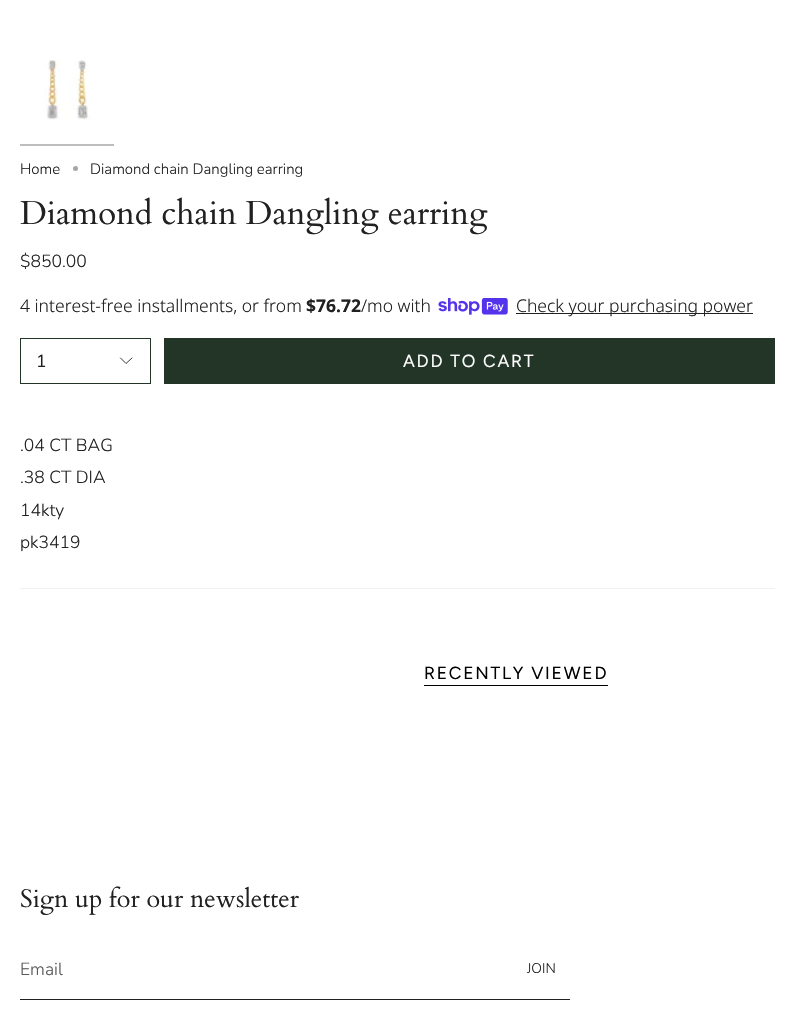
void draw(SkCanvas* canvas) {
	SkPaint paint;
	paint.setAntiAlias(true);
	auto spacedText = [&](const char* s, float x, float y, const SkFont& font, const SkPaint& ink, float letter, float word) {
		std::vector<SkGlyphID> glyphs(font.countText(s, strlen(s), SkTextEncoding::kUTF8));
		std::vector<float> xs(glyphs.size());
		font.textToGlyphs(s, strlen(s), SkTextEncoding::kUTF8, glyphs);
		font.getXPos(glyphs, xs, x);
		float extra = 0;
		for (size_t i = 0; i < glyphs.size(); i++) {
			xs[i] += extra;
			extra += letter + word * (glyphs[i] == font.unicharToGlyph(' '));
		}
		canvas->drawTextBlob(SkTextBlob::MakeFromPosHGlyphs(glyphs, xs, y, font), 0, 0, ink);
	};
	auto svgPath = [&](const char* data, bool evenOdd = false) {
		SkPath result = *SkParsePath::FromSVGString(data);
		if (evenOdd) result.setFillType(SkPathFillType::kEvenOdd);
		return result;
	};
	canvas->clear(0xffffffff);
	canvas->drawImageRect(SkImages::DeferredFromEncodedData(SkData::MakeFromFileName("img1.png")), SkRect::MakeXYWH(43, 60, 47, 60), SkSamplingOptions());
	paint.setColor(0xffbdbdbd);
	canvas->drawRect(SkRect::MakeXYWH(20, 144, 94, 2), paint);
	SkFont f1(fontMgr->matchFamilyStyle("Nunito", SkFontStyle(300, SkFontStyle::kNormal_Width, SkFontStyle::kUpright_Slant)), 15);
	f1.setSubpixel(true);
	paint.setColor(0xff212121);
	canvas->drawString("Home", 20, 174, f1, paint);
	paint.setColor(0xffa6a6a6);
	canvas->drawCircle(75.5, 168.5, 2.5, paint);
	paint.setColor(0xff212121);
	canvas->drawString("Diamond chain Dangling earring", 90, 174, f1, paint);
	SkFont f2(fontMgr->matchFamilyStyle("Cardo", SkFontStyle::Normal()), 33);
	f2.setSubpixel(true);
	canvas->drawString("Diamond chain Dangling earring", 20, 224, f2, paint);
	SkFont f3(fontMgr->matchFamilyStyle("Nunito", SkFontStyle(300, SkFontStyle::kNormal_Width, SkFontStyle::kUpright_Slant)), 17.5);
	f3.setSubpixel(true);
	canvas->drawString("$850.00", 20, 267, f3, paint);
	SkFont f4(fontMgr->matchFamilyStyle("Noto Sans", SkFontStyle(300, SkFontStyle::kNormal_Width, SkFontStyle::kUpright_Slant)), 17.5);
	f4.setSubpixel(true);
	canvas->drawString("4 interest-free installments, or from", 20, 312, f4, paint);
	SkFont f5(fontMgr->matchFamilyStyle("Noto Sans", SkFontStyle::Bold()), 17.5);
	f5.setSubpixel(true);
	canvas->drawString("$76.72", 306, 312, f5, paint);
	canvas->drawString("/mo with", 361, 312, f4, paint);
	canvas->drawImageRect(SkImages::DeferredFromEncodedData(SkData::MakeFromFileName("img2.png")), SkRect::MakeXYWH(438, 298, 70, 17), SkSamplingOptions());
	canvas->drawRect(SkRect::MakeXYWH(516, 313, 237, 1), paint);
	canvas->drawString("Check your purchasing power", 516, 312, f4, paint);
	paint.setStroke(true);
	paint.setStrokeWidth(1);
	paint.setColor(0xff223527);
	canvas->drawRect(SkRect::MakeXYWH(20.5, 338.5, 130, 45), paint);
	SkFont f6(fontMgr->matchFamilyStyle("Nunito", SkFontStyle::Normal()), 17.5);
	f6.setSubpixel(true);
	paint.setStroke(false);
	paint.setColor(0xff212121);
	canvas->drawString("1", 36, 367, f6, paint);
	paint.setStroke(true);
	paint.setStrokeWidth(0.9);
	paint.setStrokeCap(SkPaint::kRound_Cap);
	paint.setStrokeJoin(SkPaint::kRound_Join);
	canvas->drawPath(svgPath("M120.5 358L126 363.5L132 358"), paint);
	paint.setStroke(false);
	paint.setColor(0xff223527);
	canvas->drawRect(SkRect::MakeXYWH(164, 338, 611, 46), paint);
	SkFont f7(fontMgr->matchFamilyStyle("Figtree", SkFontStyle::Normal()), 17.5);
	f7.setSubpixel(true);
	paint.setColor(0xffffffff);
	spacedText("ADD TO CART", 403, 367, f7, paint, 1.75, 0);
	paint.setColor(0xff212121);
	canvas->drawString(".04 CT BAG", 20, 451, f3, paint);
	canvas->drawString(".38 CT DIA", 20, 483, f3, paint);
	canvas->drawString("14kty", 20, 516, f3, paint);
	canvas->drawString("pk3419", 20, 548, f3, paint);
	paint.setColor(0xfff0f0f0);
	canvas->drawRect(SkRect::MakeXYWH(20, 588, 755, 1), paint);
	paint.setColor(0xff000000);
	spacedText("RECENTLY VIEWED", 424, 679, f7, paint, 1.75, 0);
	canvas->drawRect(SkRect::MakeXYWH(424, 685, 184, 1), paint);
	SkFont f8(fontMgr->matchFamilyStyle("Cardo", SkFontStyle::Normal()), 25.25);
	f8.setSubpixel(true);
	paint.setColor(0xff212121);
	canvas->drawString("Sign up for our newsletter", 20, 907, f8, paint);
	canvas->drawRect(SkRect::MakeXYWH(20, 999, 550, 1), paint);
	paint.setColor(0xff595959);
	canvas->drawString("Email", 20, 975, f3, paint);
	SkFont f9(fontMgr->matchFamilyStyle("Nunito", SkFontStyle(300, SkFontStyle::kNormal_Width, SkFontStyle::kUpright_Slant)), 14);
	f9.setSubpixel(true);
	paint.setColor(0xff212121);
	canvas->drawString("JOIN", 527, 973, f9, paint);
}
